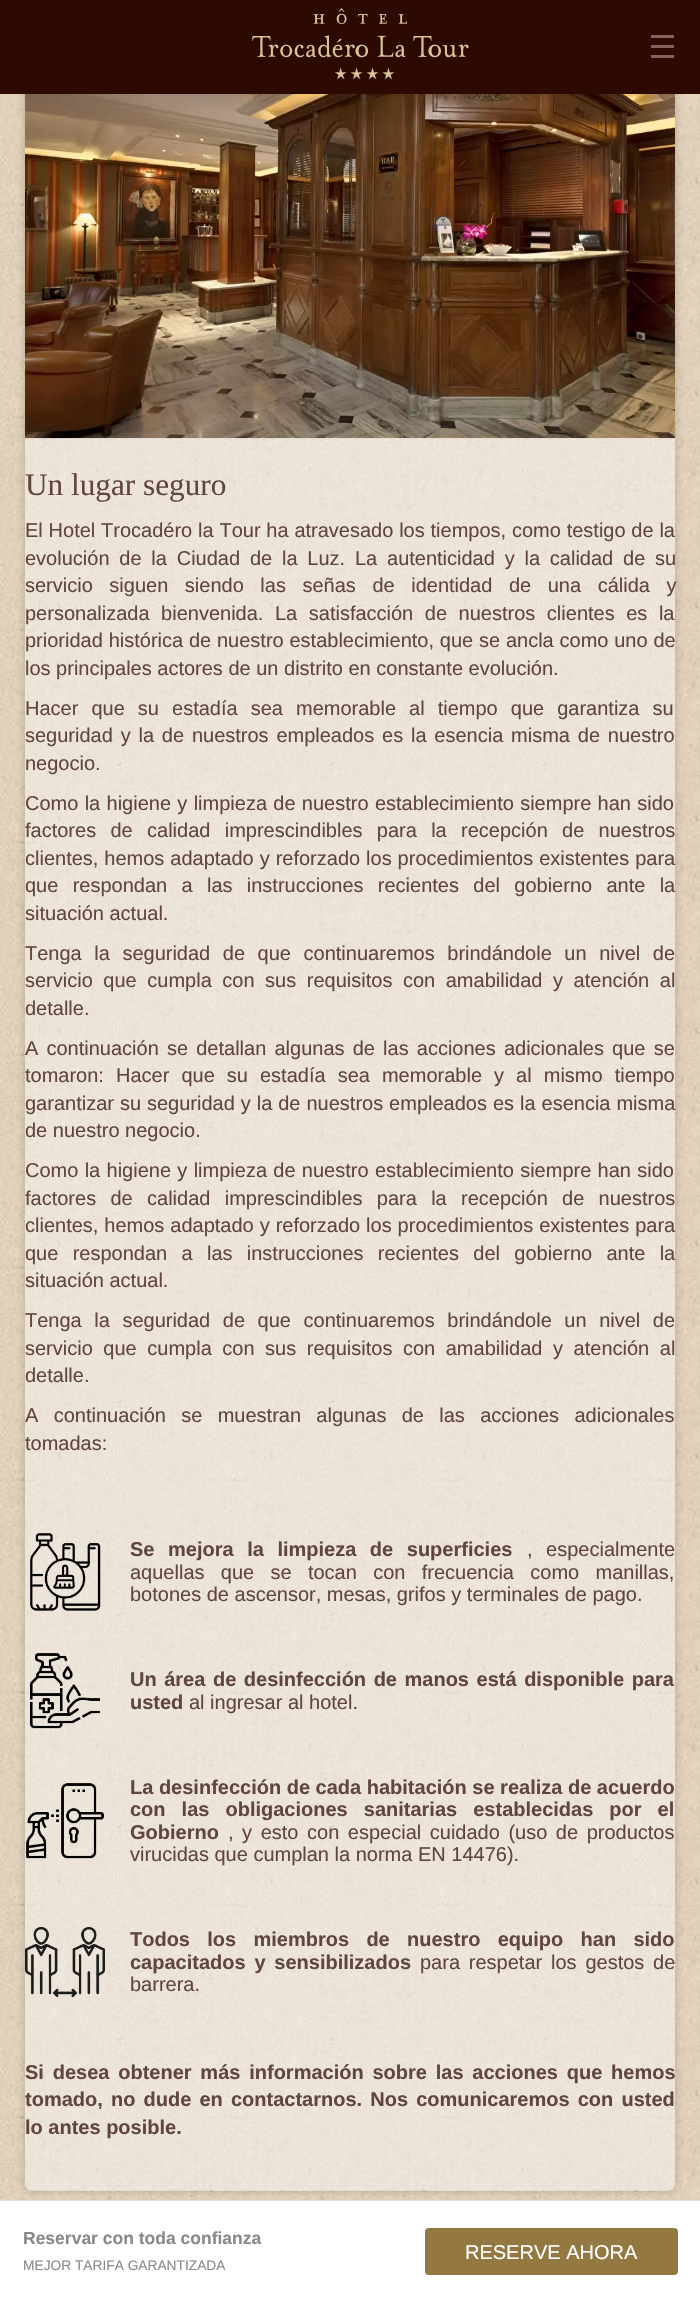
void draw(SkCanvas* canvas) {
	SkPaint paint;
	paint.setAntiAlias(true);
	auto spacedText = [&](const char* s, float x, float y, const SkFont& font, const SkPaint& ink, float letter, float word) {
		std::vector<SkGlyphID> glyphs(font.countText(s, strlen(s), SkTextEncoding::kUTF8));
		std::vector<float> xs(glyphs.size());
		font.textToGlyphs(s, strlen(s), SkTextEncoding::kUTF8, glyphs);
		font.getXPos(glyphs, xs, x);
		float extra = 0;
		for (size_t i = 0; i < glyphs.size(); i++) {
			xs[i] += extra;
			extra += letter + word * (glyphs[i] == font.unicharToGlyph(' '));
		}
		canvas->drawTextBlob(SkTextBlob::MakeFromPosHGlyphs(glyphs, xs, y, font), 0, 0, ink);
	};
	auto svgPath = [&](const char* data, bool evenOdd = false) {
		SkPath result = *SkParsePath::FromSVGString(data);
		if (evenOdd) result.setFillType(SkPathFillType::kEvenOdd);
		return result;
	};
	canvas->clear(0xffffffff);
	canvas->drawImageRect(SkImages::DeferredFromEncodedData(SkData::MakeFromFileName("img2.png")), SkRect::MakeXYWH(0, 94, 700, 2106), SkSamplingOptions());
	canvas->save();
	canvas->clipPath(svgPath("M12 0H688V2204H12ZM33 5H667C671.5 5 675 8.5 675 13V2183C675 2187.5 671.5 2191 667 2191H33C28.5 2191 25 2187.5 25 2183V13C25 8.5 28.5 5 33 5Z", true), true);
	paint.setColor(0x33000000);
	paint.setMaskFilter(SkMaskFilter::MakeBlur(kNormal_SkBlurStyle, 4));
	canvas->drawRoundRect(SkRect::MakeXYWH(25, 5, 650, 2186), 8, 8, paint);
	paint.setMaskFilter(nullptr);
	canvas->restore();
	paint.setColor(0xff2c0a02);
	canvas->drawRect(SkRect::MakeXYWH(0, 0, 700, 94), paint);
	canvas->drawImageRect(SkImages::DeferredFromEncodedData(SkData::MakeFromFileName("img1.png")), SkRect::MakeXYWH(252, 8, 217, 72), SkSamplingOptions());
	paint.setColor(0xff86625b);
	canvas->drawRect(SkRect::MakeXYWH(651, 35, 23, 3), paint);
	canvas->drawRect(SkRect::MakeXYWH(651, 55, 23, 3), paint);
	canvas->drawRect(SkRect::MakeXYWH(651, 45, 23, 3), paint);
	canvas->drawImageRect(SkImages::DeferredFromEncodedData(SkData::MakeFromFileName("img3.png")), SkRect::MakeXYWH(25, 438, 650, 1753), SkSamplingOptions());
	canvas->drawImageRect(SkImages::DeferredFromEncodedData(SkData::MakeFromFileName("img4.png")), SkRect::MakeXYWH(25, 94, 650, 345), SkSamplingOptions());
	SkFont f1(fontMgr->matchFamilyStyle("Liberation Serif", SkFontStyle::Normal()), 31.25);
	f1.setSubpixel(true);
	paint.setColor(0xff604541);
	canvas->drawString("Un lugar seguro", 25, 495, f1, paint);
	SkFont f2(fontMgr->matchFamilyStyle("Liberation Sans", SkFontStyle::Normal()), 20);
	f2.setSubpixel(true);
	spacedText("El Hotel Trocadéro la Tour ha atravesado los tiempos, como testigo de la", 25, 537, f2, paint, 0, 0.25);
	spacedText("evolución de la Ciudad de la Luz. La autenticidad y la calidad de su", 25, 565, f2, paint, 0, 4.25);
	spacedText("servicio siguen siendo las señas de identidad de una cálida y", 25, 592, f2, paint, 0, 11);
	spacedText("personalizada bienvenida. La satisfacción de nuestros clientes es la", 25, 620, f2, paint, 0, 6);
	spacedText("prioridad histórica de nuestro establecimiento, que se ancla como uno de", 25, 647, f2, paint, 0, 0.25);
	canvas->drawString("los principales actores de un distrito en constante evolución.", 25, 675, f2, paint);
	spacedText("Hacer que su estadía sea memorable al tiempo que garantiza su", 25, 715, f2, paint, 0, 7.5);
	spacedText("seguridad y la de nuestros empleados es la esencia misma de nuestro", 25, 742, f2, paint, 0, 2.25);
	canvas->drawString("negocio.", 25, 770, f2, paint);
	spacedText("Como la higiene y limpieza de nuestro establecimiento siempre han sido", 25, 810, f2, paint, 0, 0.75);
	spacedText("factores de calidad imprescindibles para la recepción de nuestros", 25, 837, f2, paint, 0, 8.75);
	spacedText("clientes, hemos adaptado y reforzado los procedimientos existentes para", 25, 865, f2, paint, 0, 0.4);
	spacedText("que respondan a las instrucciones recientes del gobierno ante la", 25, 892, f2, paint, 0, 8.75);
	canvas->drawString("situación actual.", 25, 920, f2, paint);
	spacedText("Tenga la seguridad de que continuaremos brindándole un nivel de", 25, 960, f2, paint, 0, 7);
	spacedText("servicio que cumpla con sus requisitos con amabilidad y atención al", 25, 987, f2, paint, 0, 5);
	canvas->drawString("detalle.", 25, 1015, f2, paint);
	spacedText("A continuación se detallan algunas de las acciones adicionales que se", 25, 1055, f2, paint, 0, 2.6);
	spacedText("tomaron: Hacer que su estadía sea memorable y al mismo tiempo", 25, 1082, f2, paint, 0, 6.5);
	spacedText("garantizar su seguridad y la de nuestros empleados es la esencia misma", 25, 1110, f2, paint, 0, 0.4);
	canvas->drawString("de nuestro negocio.", 25, 1137, f2, paint);
	spacedText("Como la higiene y limpieza de nuestro establecimiento siempre han sido", 25, 1177, f2, paint, 0, 0.75);
	spacedText("factores de calidad imprescindibles para la recepción de nuestros", 25, 1205, f2, paint, 0, 8.75);
	spacedText("clientes, hemos adaptado y reforzado los procedimientos existentes para", 25, 1232, f2, paint, 0, 0.4);
	spacedText("que respondan a las instrucciones recientes del gobierno ante la", 25, 1260, f2, paint, 0, 8.75);
	canvas->drawString("situación actual.", 25, 1287, f2, paint);
	spacedText("Tenga la seguridad de que continuaremos brindándole un nivel de", 25, 1327, f2, paint, 0, 7);
	spacedText("servicio que cumpla con sus requisitos con amabilidad y atención al", 25, 1355, f2, paint, 0, 5);
	canvas->drawString("detalle.", 25, 1382, f2, paint);
	spacedText("A continuación se muestran algunas de las acciones adicionales", 25, 1422, f2, paint, 0, 9.75);
	canvas->drawString("tomadas:", 25, 1450, f2, paint);
	canvas->drawImageRect(SkImages::DeferredFromEncodedData(SkData::MakeFromFileName("img5.png")), SkRect::MakeXYWH(30, 1533, 71, 78), SkSamplingOptions());
	SkFont f3(fontMgr->matchFamilyStyle("Liberation Sans", SkFontStyle::Bold()), 20);
	f3.setSubpixel(true);
	spacedText("Se mejora la limpieza de superficies", 130, 1556, f3, paint, 0, 8);
	spacedText(", especialmente", 527, 1556, f2, paint, 0, 8);
	spacedText("aquellas que se tocan con frecuencia como manillas,", 130, 1579, f2, paint, 0, 10.75);
	canvas->drawString("botones de ascensor, mesas, grifos y terminales de pago.", 130, 1601, f2, paint);
	canvas->drawImageRect(SkImages::DeferredFromEncodedData(SkData::MakeFromFileName("img6.png")), SkRect::MakeXYWH(30, 1653, 70, 76), SkSamplingOptions());
	spacedText("Un área de desinfección de manos está disponible para", 130, 1686, f3, paint, 0, 2);
	canvas->drawString("usted", 130, 1709, f3, paint);
	canvas->drawString("al ingresar al hotel.", 189, 1709, f2, paint);
	canvas->drawImageRect(SkImages::DeferredFromEncodedData(SkData::MakeFromFileName("img7.png")), SkRect::MakeXYWH(26, 1783, 78, 76), SkSamplingOptions());
	canvas->drawString("La desinfección de cada habitación se realiza de acuerdo", 130, 1794, f3, paint);
	spacedText("con las obligaciones sanitarias establecidas por el", 130, 1816, f3, paint, 0, 10.5);
	canvas->drawString("Gobierno", 130, 1839, f3, paint);
	spacedText(", y esto con especial cuidado (uso de productos", 228, 1839, f2, paint, 0, 3);
	canvas->drawString("virucidas que cumplan la norma EN 14476).", 130, 1861, f2, paint);
	canvas->drawImageRect(SkImages::DeferredFromEncodedData(SkData::MakeFromFileName("img8.png")), SkRect::MakeXYWH(25, 1926, 80, 72), SkSamplingOptions());
	spacedText("Todos los miembros de nuestro equipo han sido", 130, 1946, f3, paint, 0, 11.75);
	spacedText("capacitados y sensibilizados", 130, 1969, f3, paint, 0, 3.25);
	spacedText("para respetar los gestos de", 420, 1969, f2, paint, 0, 3.25);
	canvas->drawString("barrera.", 130, 1991, f2, paint);
	spacedText("Si desea obtener más información sobre las acciones que hemos", 25, 2079, f3, paint, 0, 3.25);
	spacedText("tomado, no dude en contactarnos. Nos comunicaremos con usted", 25, 2106, f3, paint, 0, 2.6);
	canvas->drawString("lo antes posible.", 25, 2134, f3, paint);
	paint.setColor(0xffdfdfdf);
	canvas->drawRect(SkRect::MakeXYWH(0, 2200, 700, 1), paint);
	SkFont f4(fontMgr->matchFamilyStyle("Liberation Sans", SkFontStyle::Bold()), 17.5);
	f4.setSubpixel(true);
	paint.setColor(0xff898989);
	canvas->drawString("Reservar con toda confianza", 23, 2244, f4, paint);
	SkFont f5(fontMgr->matchFamilyStyle("Liberation Sans", SkFontStyle::Normal()), 13.75);
	f5.setSubpixel(true);
	canvas->drawString("MEJOR TARIFA GARANTIZADA", 23, 2270, f5, paint);
	paint.setColor(0xff937841);
	canvas->drawRoundRect(SkRect::MakeXYWH(425, 2228, 253, 47), 4, 4, paint);
	paint.setColor(0xffffffff);
	canvas->drawString("RESERVE AHORA", 465, 2259, f2, paint);
}
